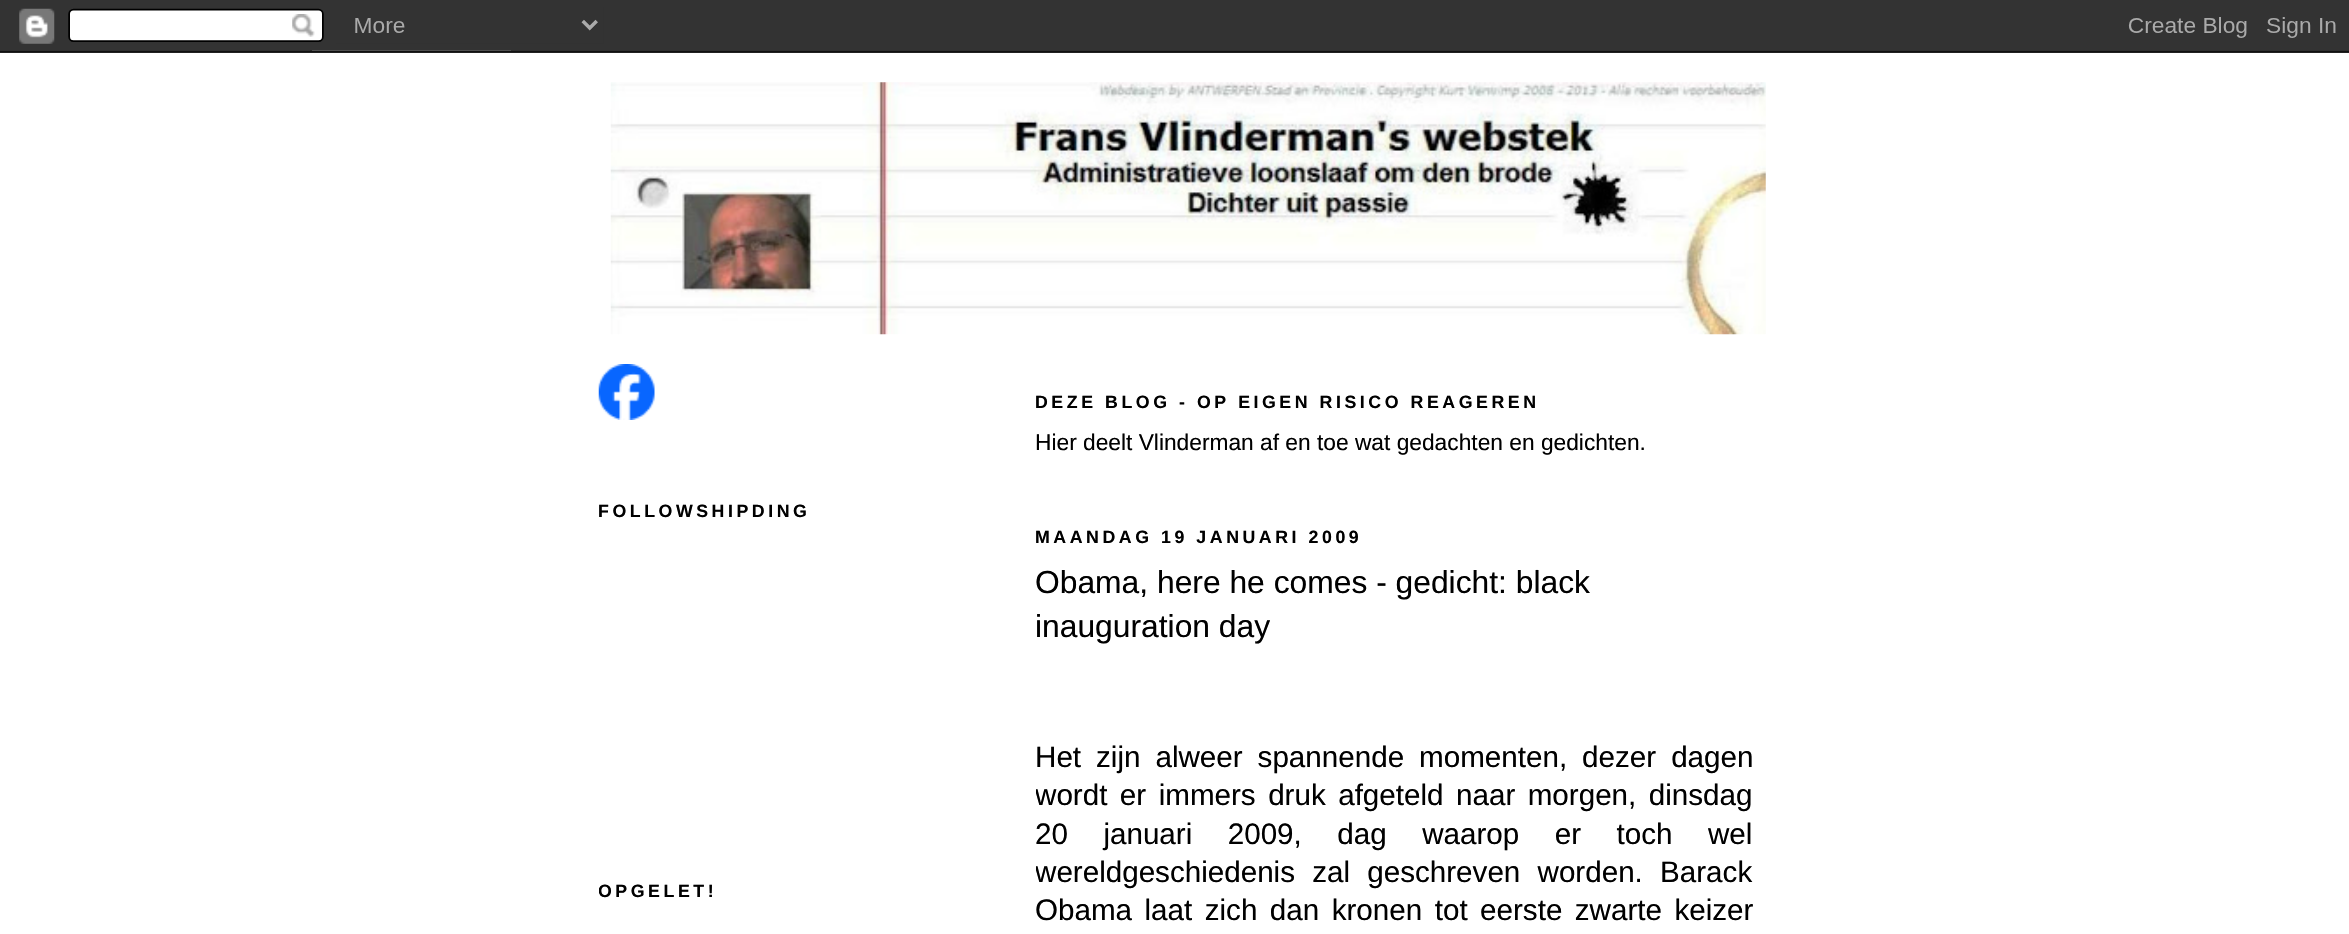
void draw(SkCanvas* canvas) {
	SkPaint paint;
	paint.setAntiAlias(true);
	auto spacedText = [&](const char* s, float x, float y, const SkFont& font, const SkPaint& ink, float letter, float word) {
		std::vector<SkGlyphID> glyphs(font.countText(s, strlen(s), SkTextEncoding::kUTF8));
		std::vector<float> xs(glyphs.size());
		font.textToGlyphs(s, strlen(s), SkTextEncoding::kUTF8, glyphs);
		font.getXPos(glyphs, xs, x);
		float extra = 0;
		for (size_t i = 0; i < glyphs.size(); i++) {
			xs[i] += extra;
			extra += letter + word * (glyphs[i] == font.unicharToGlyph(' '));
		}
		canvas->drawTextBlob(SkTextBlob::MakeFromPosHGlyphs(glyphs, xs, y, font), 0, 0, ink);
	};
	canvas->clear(0xffffffff);
	canvas->drawImageRect(SkImages::DeferredFromEncodedData(SkData::MakeFromFileName("img1.png")), SkRect::MakeXYWH(0, 0, 2349, 53), SkSamplingOptions());
	canvas->drawImageRect(SkImages::DeferredFromEncodedData(SkData::MakeFromFileName("img2.png")), SkRect::MakeXYWH(610, 82, 1156, 253), SkSamplingOptions());
	canvas->drawImageRect(SkImages::DeferredFromEncodedData(SkData::MakeFromFileName("img3.png")), SkRect::MakeXYWH(598, 364, 57, 56), SkSamplingOptions());
	canvas->save();
	canvas->clipRect(SkRect::MakeXYWH(599, 364, 385, 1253));
	SkFont f1(fontMgr->matchFamilyStyle("Liberation Sans", SkFontStyle::Bold()), 17.75);
	f1.setSubpixel(true);
	paint.setColor(0xff000000);
	spacedText("FOLLOWSHIPDING", 598, 517, f1, paint, 3.55, 0);
	spacedText("OPGELET!", 598, 897, f1, paint, 3.55, 0);
	canvas->restore();
	spacedText("DEZE BLOG - OP EIGEN RISICO REAGEREN", 1035, 408, f1, paint, 3.55, 0);
	SkFont f2(fontMgr->matchFamilyStyle("Liberation Sans", SkFontStyle::Normal()), 22.75);
	f2.setSubpixel(true);
	canvas->drawString("Hier deelt Vlinderman af en toe wat gedachten en gedichten.", 1035, 450, f2, paint);
	spacedText("MAANDAG 19 JANUARI 2009", 1035, 543, f1, paint, 3.55, 0);
	SkFont f3(fontMgr->matchFamilyStyle("Liberation Sans", SkFontStyle::Normal()), 31.8);
	f3.setSubpixel(true);
	canvas->drawString("Obama, here he comes - gedicht: black", 1035, 593, f3, paint);
	canvas->drawString("inauguration day", 1035, 637, f3, paint);
	SkFont f4(fontMgr->matchFamilyStyle("Liberation Sans", SkFontStyle::Normal()), 29.6);
	f4.setSubpixel(true);
	spacedText("Het zijn alweer spannende momenten, dezer dagen", 1035, 767, f4, paint, 0, 6.75);
	canvas->save();
	canvas->clipRect(SkRect::MakeXYWH(1036, 364, 718, 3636));
	spacedText("wordt er immers druk afgeteld naar morgen, dinsdag", 1035, 805, f4, paint, 0, 4.25);
	canvas->restore();
	spacedText("20 januari 2009, dag waarop er toch wel", 1035, 844, f4, paint, 0, 27.25);
	canvas->save();
	canvas->clipRect(SkRect::MakeXYWH(1036, 364, 718, 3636));
	spacedText("wereldgeschiedenis zal geschreven worden. Barack", 1035, 882, f4, paint, 0, 9);
	canvas->restore();
	spacedText("Obama laat zich dan kronen tot eerste zwarte keizer", 1035, 920, f4, paint, 0, 4.25);
}
